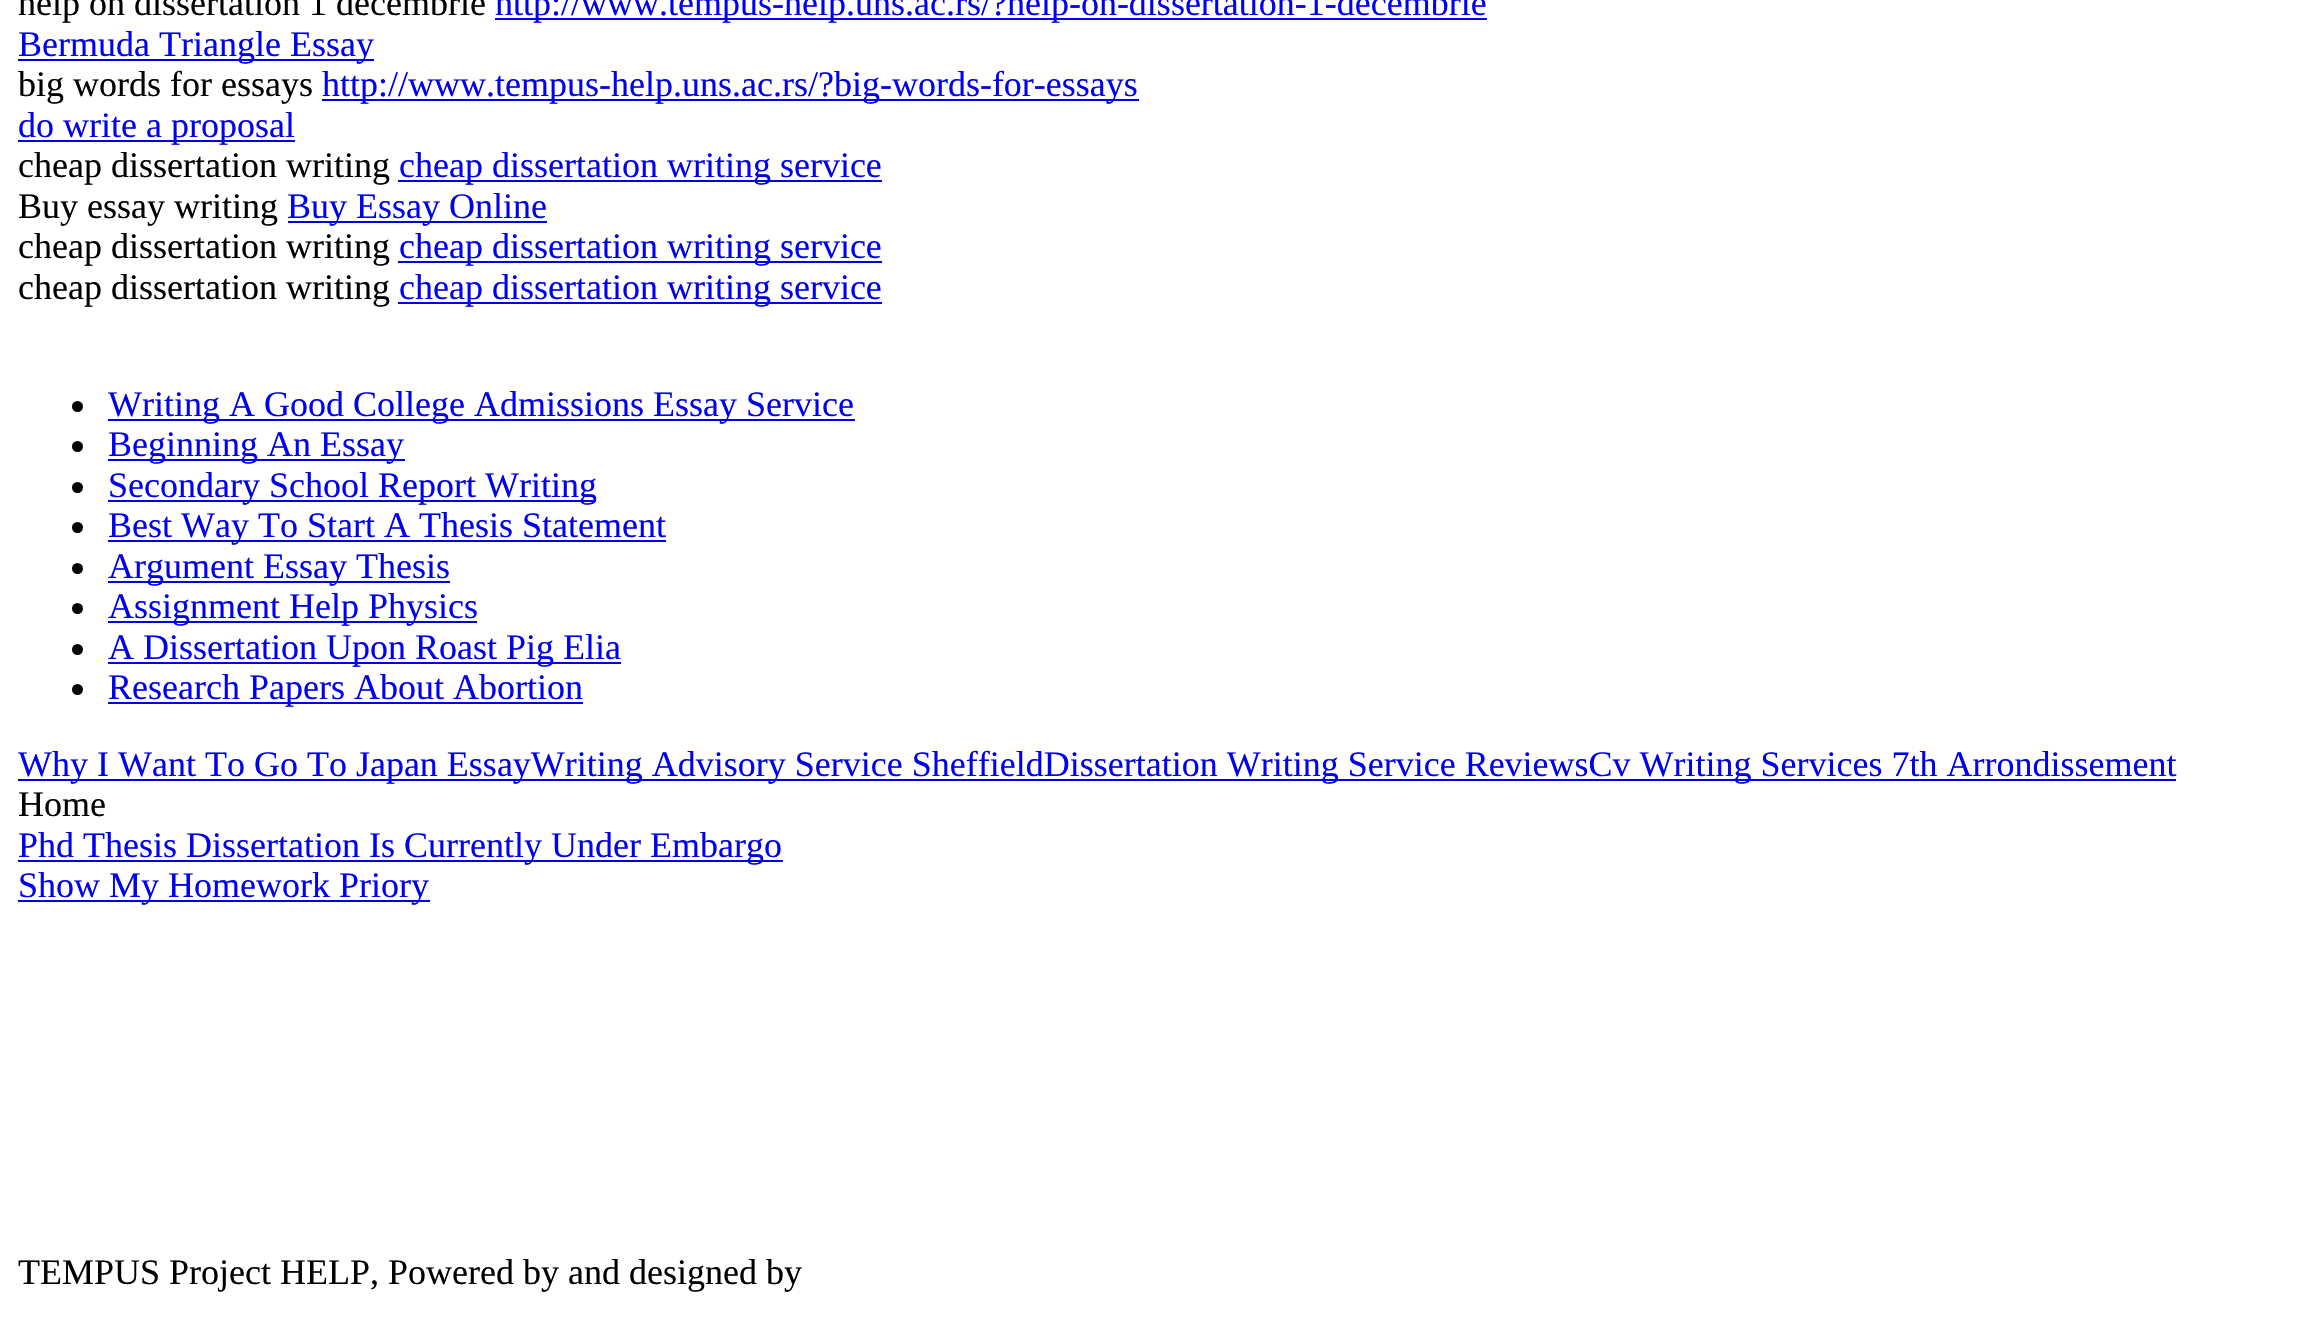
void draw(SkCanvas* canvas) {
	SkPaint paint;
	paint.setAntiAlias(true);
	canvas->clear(0xffffffff);
	SkFont f1(fontMgr->matchFamilyStyle("Liberation Serif", SkFontStyle::Normal()), 36);
	f1.setSubpixel(true);
	paint.setColor(0xff000000);
	canvas->drawString("help on dissertation 1 decembrie", 18, 15, f1, paint);
	paint.setColor(0xff0000ee);
	canvas->drawRect(SkRect::MakeXYWH(495, 18, 992, 2), paint);
	canvas->drawString("http://www.tempus-help.uns.ac.rs/?help-on-dissertation-1-decembrie", 495, 15, f1, paint);
	canvas->drawRect(SkRect::MakeXYWH(18, 59, 356, 2), paint);
	canvas->drawString("Bermuda Triangle Essay", 18, 56, f1, paint);
	paint.setColor(0xff000000);
	canvas->drawString("big words for essays", 18, 96, f1, paint);
	paint.setColor(0xff0000ee);
	canvas->drawRect(SkRect::MakeXYWH(322, 99, 817, 2), paint);
	canvas->drawString("http://www.tempus-help.uns.ac.rs/?big-words-for-essays", 322, 96, f1, paint);
	canvas->drawRect(SkRect::MakeXYWH(18, 140, 277, 2), paint);
	canvas->drawString("do write a proposal", 18, 137, f1, paint);
	paint.setColor(0xff000000);
	canvas->drawString("cheap dissertation writing", 18, 177, f1, paint);
	paint.setColor(0xff0000ee);
	canvas->drawRect(SkRect::MakeXYWH(398, 180, 484, 2), paint);
	canvas->drawString("cheap dissertation writing service", 399, 177, f1, paint);
	paint.setColor(0xff000000);
	canvas->drawString("Buy essay writing", 18, 218, f1, paint);
	paint.setColor(0xff0000ee);
	canvas->drawRect(SkRect::MakeXYWH(288, 221, 259, 2), paint);
	canvas->drawString("Buy Essay Online", 287, 218, f1, paint);
	paint.setColor(0xff000000);
	canvas->drawString("cheap dissertation writing", 18, 258, f1, paint);
	paint.setColor(0xff0000ee);
	canvas->drawRect(SkRect::MakeXYWH(398, 261, 484, 2), paint);
	canvas->drawString("cheap dissertation writing service", 399, 258, f1, paint);
	paint.setColor(0xff000000);
	canvas->drawString("cheap dissertation writing", 18, 299, f1, paint);
	paint.setColor(0xff0000ee);
	canvas->drawRect(SkRect::MakeXYWH(398, 302, 484, 2), paint);
	canvas->drawString("cheap dissertation writing service", 399, 299, f1, paint);
	paint.setColor(0xff000000);
	canvas->drawCircle(77.5, 406.5, 5.5, paint);
	paint.setColor(0xff0000ee);
	canvas->drawRect(SkRect::MakeXYWH(108, 419, 747, 2), paint);
	canvas->drawString("Writing A Good College Admissions Essay Service", 108, 416, f1, paint);
	paint.setColor(0xff000000);
	canvas->drawCircle(77.5, 446.5, 5.5, paint);
	paint.setColor(0xff0000ee);
	canvas->drawRect(SkRect::MakeXYWH(108, 459, 297, 2), paint);
	canvas->drawString("Beginning An Essay", 108, 456, f1, paint);
	paint.setColor(0xff000000);
	canvas->drawCircle(77.5, 487.5, 5.5, paint);
	paint.setColor(0xff0000ee);
	canvas->drawRect(SkRect::MakeXYWH(108, 500, 488, 2), paint);
	canvas->drawString("Secondary School Report Writing", 108, 497, f1, paint);
	paint.setColor(0xff000000);
	canvas->drawCircle(77.5, 527.5, 5.5, paint);
	paint.setColor(0xff0000ee);
	canvas->drawRect(SkRect::MakeXYWH(108, 540, 558, 2), paint);
	canvas->drawString("Best Way To Start A Thesis Statement", 108, 537, f1, paint);
	paint.setColor(0xff000000);
	canvas->drawCircle(77.5, 568.5, 5.5, paint);
	paint.setColor(0xff0000ee);
	canvas->drawRect(SkRect::MakeXYWH(108, 581, 342, 2), paint);
	canvas->drawString("Argument Essay Thesis", 108, 578, f1, paint);
	paint.setColor(0xff000000);
	canvas->drawCircle(77.5, 608.5, 5.5, paint);
	paint.setColor(0xff0000ee);
	canvas->drawRect(SkRect::MakeXYWH(108, 621, 369, 2), paint);
	canvas->drawString("Assignment Help Physics", 108, 618, f1, paint);
	paint.setColor(0xff000000);
	canvas->drawCircle(77.5, 649.5, 5.5, paint);
	paint.setColor(0xff0000ee);
	canvas->drawRect(SkRect::MakeXYWH(108, 662, 513, 2), paint);
	canvas->drawString("A Dissertation Upon Roast Pig Elia", 108, 659, f1, paint);
	paint.setColor(0xff000000);
	canvas->drawCircle(77.5, 689.5, 5.5, paint);
	paint.setColor(0xff0000ee);
	canvas->drawRect(SkRect::MakeXYWH(108, 702, 475, 2), paint);
	canvas->drawString("Research Papers About Abortion", 108, 699, f1, paint);
	canvas->drawRect(SkRect::MakeXYWH(18, 779, 2158, 2), paint);
	canvas->drawString("Why I Want To Go To Japan EssayWriting Advisory Service SheffieldDissertation Writing Service ReviewsCv Writing Services 7th Arrondissement", 18, 776, f1, paint);
	paint.setColor(0xff000000);
	canvas->drawString("Home", 18, 816, f1, paint);
	paint.setColor(0xff0000ee);
	canvas->drawRect(SkRect::MakeXYWH(18, 860, 765, 2), paint);
	canvas->drawString("Phd Thesis Dissertation Is Currently Under Embargo", 18, 857, f1, paint);
	canvas->drawRect(SkRect::MakeXYWH(18, 900, 412, 2), paint);
	canvas->drawString("Show My Homework Priory", 18, 897, f1, paint);
	paint.setColor(0xff000000);
	canvas->drawString("TEMPUS Project HELP, Powered by and designed by", 18, 1284, f1, paint);
}
